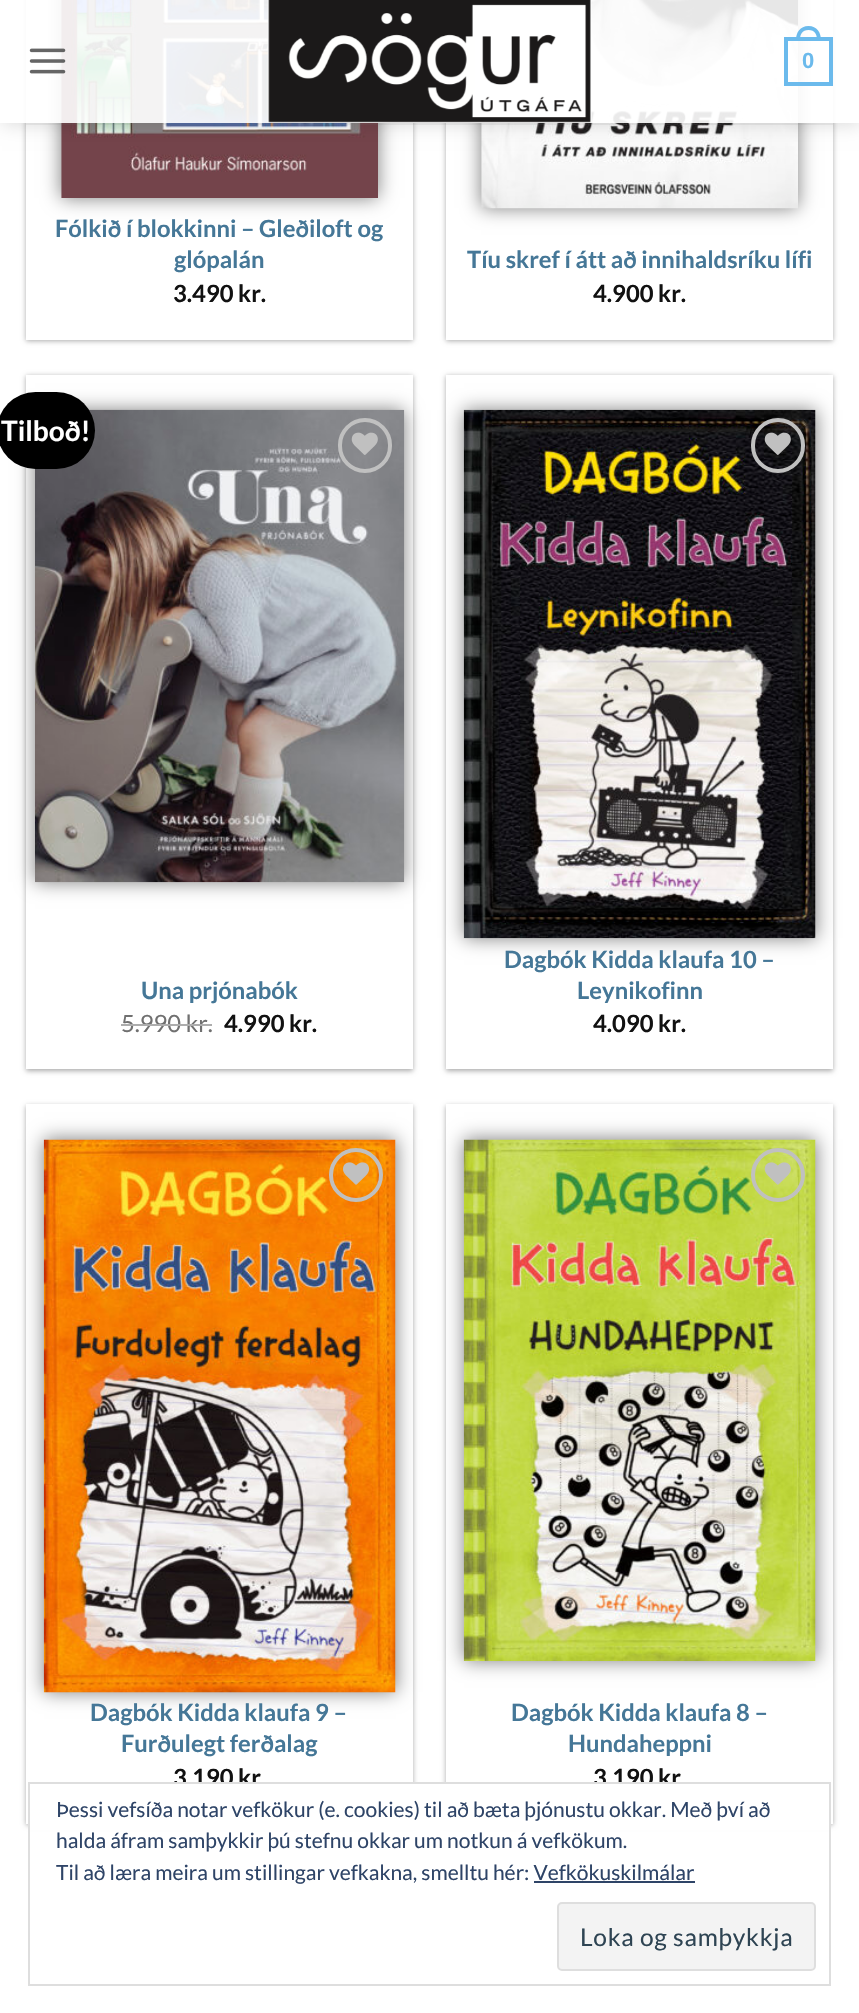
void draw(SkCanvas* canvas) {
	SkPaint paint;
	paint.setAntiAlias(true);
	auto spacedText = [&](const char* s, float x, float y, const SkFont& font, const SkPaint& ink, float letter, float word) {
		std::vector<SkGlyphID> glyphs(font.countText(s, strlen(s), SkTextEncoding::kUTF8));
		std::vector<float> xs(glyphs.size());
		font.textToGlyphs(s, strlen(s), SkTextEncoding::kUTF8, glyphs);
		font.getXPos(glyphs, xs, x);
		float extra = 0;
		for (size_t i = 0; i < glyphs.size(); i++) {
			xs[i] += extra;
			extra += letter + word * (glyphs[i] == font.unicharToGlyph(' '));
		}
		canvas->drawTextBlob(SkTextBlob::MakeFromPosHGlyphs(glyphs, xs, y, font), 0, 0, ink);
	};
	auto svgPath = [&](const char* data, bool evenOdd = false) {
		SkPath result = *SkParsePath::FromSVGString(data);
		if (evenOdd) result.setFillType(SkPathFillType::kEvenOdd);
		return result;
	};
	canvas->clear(0xffffffff);
	canvas->save();
	canvas->clipPath(svgPath("M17 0H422V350H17ZM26-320H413V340H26Z", true), true);
	paint.setColor(0x54000000);
	paint.setMaskFilter(SkMaskFilter::MakeBlur(kNormal_SkBlurStyle, 2.5));
	canvas->drawRect(SkRect::MakeXYWH(26, -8, 387, 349), paint);
	paint.setMaskFilter(nullptr);
	canvas->restore();
	paint.setColor(0x80000000);
	paint.setMaskFilter(SkMaskFilter::MakeBlur(kNormal_SkBlurStyle, 9));
	canvas->drawRect(SkRect::MakeXYWH(61, -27, 317, 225), paint);
	paint.setMaskFilter(nullptr);
	canvas->drawImageRect(SkImages::DeferredFromEncodedData(SkData::MakeFromFileName("img3.png")), SkRect::MakeXYWH(61, 0, 317, 198), SkSamplingOptions());
	canvas->save();
	canvas->clipPath(svgPath("M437 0H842V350H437ZM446-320H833V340H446Z", true), true);
	paint.setColor(0x54000000);
	paint.setMaskFilter(SkMaskFilter::MakeBlur(kNormal_SkBlurStyle, 2.5));
	canvas->drawRect(SkRect::MakeXYWH(446, -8, 387, 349), paint);
	paint.setMaskFilter(nullptr);
	canvas->restore();
	paint.setColor(0x80000000);
	paint.setMaskFilter(SkMaskFilter::MakeBlur(kNormal_SkBlurStyle, 9));
	canvas->drawRect(SkRect::MakeXYWH(481, -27, 317, 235), paint);
	paint.setMaskFilter(nullptr);
	canvas->drawImageRect(SkImages::DeferredFromEncodedData(SkData::MakeFromFileName("img4.png")), SkRect::MakeXYWH(481, 0, 317, 209), SkSamplingOptions());
	canvas->save();
	canvas->clipPath(svgPath("M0 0H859V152H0ZM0 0H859V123H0Z", true), true);
	paint.setColor(0x26000000);
	paint.setMaskFilter(SkMaskFilter::MakeBlur(kNormal_SkBlurStyle, 9));
	canvas->drawRect(SkRect::MakeXYWH(2, 2, 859, 122), paint);
	paint.setMaskFilter(nullptr);
	canvas->restore();
	paint.setColor(0xe6ffffff);
	canvas->drawRect(SkRect::MakeXYWH(0, 0, 859, 123), paint);
	canvas->drawImageRect(SkImages::DeferredFromEncodedData(SkData::MakeFromFileName("img1.png")), SkRect::MakeXYWH(29, 48, 37, 26), SkSamplingOptions());
	canvas->drawImageRect(SkImages::DeferredFromEncodedData(SkData::MakeFromFileName("img2.png")), SkRect::MakeXYWH(267, 0, 325, 123), SkSamplingOptions());
	paint.setStroke(true);
	paint.setStrokeWidth(4);
	paint.setColor(0xff6bbaec);
	canvas->drawRect(SkRect::MakeXYWH(786, 39, 45, 45), paint);
	paint.setStroke(false);
	canvas->drawPath(svgPath("M808.5 26C817 26 821 32.5 821 40H796C796 32.5 800 26 808.5 26ZM808.5 30C815 30 817 34.5 817 40H800C800 34.5 802 30 808.5 30Z", true), paint);
	SkFont f1(fontMgr->matchFamilyStyle("Liberation Sans", SkFontStyle::Bold()), 22);
	f1.setSubpixel(true);
	canvas->drawString("0", 802, 68, f1, paint);
	paint.setColor(0x1a777777);
	canvas->drawRect(SkRect::MakeXYWH(26, 123, 807, 2), paint);
	SkFont f2(fontMgr->matchFamilyStyle("Lato", SkFontStyle::Bold()), 23.75);
	f2.setSubpixel(true);
	paint.setColor(0xff457797);
	canvas->drawString("Fólkið í blokkinni – Gleðiloft og", 55, 237, f2, paint);
	canvas->drawString("glópalán", 174, 268, f2, paint);
	paint.setColor(0xff111111);
	canvas->drawString("3.490 kr.", 173, 302, f2, paint);
	paint.setColor(0xff457797);
	canvas->drawString("Tíu skref í átt að innihaldsríku lífi", 467, 268, f2, paint);
	paint.setColor(0xff111111);
	canvas->drawString("4.900 kr.", 593, 302, f2, paint);
	canvas->save();
	canvas->clipPath(svgPath("M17 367H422V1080H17ZM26 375H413V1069H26Z", true), true);
	paint.setColor(0x54000000);
	paint.setMaskFilter(SkMaskFilter::MakeBlur(kNormal_SkBlurStyle, 2.5));
	canvas->drawRect(SkRect::MakeXYWH(26, 376, 387, 695), paint);
	paint.setMaskFilter(nullptr);
	canvas->restore();
	paint.setColor(0x80000000);
	paint.setMaskFilter(SkMaskFilter::MakeBlur(kNormal_SkBlurStyle, 9));
	canvas->drawRect(SkRect::MakeXYWH(35, 410, 369, 472), paint);
	paint.setMaskFilter(nullptr);
	canvas->drawImageRect(SkImages::DeferredFromEncodedData(SkData::MakeFromFileName("img5.png")), SkRect::MakeXYWH(35, 409, 370, 474), SkSamplingOptions());
	paint.setColor(0xff000000);
	canvas->drawRoundRect(SkRect::MakeXYWH(-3, 392, 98, 77), 38.5, 38.5, paint);
	SkFont f3(fontMgr->matchFamilyStyle("Lato", SkFontStyle::Bold()), 28);
	f3.setSubpixel(true);
	paint.setColor(0xffffffff);
	canvas->drawString("Tilboð!", 1, 441, f3, paint);
	paint.setStroke(true);
	paint.setColor(0xffc0c0c0);
	canvas->drawRoundRect(SkRect::MakeXYWH(340, 420, 50, 51), 25, 25, paint);
	canvas->drawImageRect(SkImages::DeferredFromEncodedData(SkData::MakeFromFileName("img6.png")), SkRect::MakeXYWH(351, 432, 27, 23), SkSamplingOptions());
	paint.setStroke(false);
	paint.setColor(0xff457797);
	canvas->drawString("Una prjónabók", 141, 999, f2, paint);
	SkFont f4(fontMgr->matchFamilyStyle("Lato", SkFontStyle::Normal()), 23.75);
	f4.setSubpixel(true);
	paint.setColor(0xff707070);
	canvas->drawString("5.990 kr.", 121, 1032, f4, paint);
	paint.setColor(0xffadadad);
	canvas->drawRect(SkRect::MakeXYWH(121, 1024, 91, 2), paint);
	paint.setColor(0xff111111);
	canvas->drawString("4.990 kr.", 224, 1032, f2, paint);
	canvas->save();
	canvas->clipPath(svgPath("M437 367H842V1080H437ZM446 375H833V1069H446Z", true), true);
	paint.setColor(0x54000000);
	paint.setMaskFilter(SkMaskFilter::MakeBlur(kNormal_SkBlurStyle, 2.5));
	canvas->drawRect(SkRect::MakeXYWH(446, 376, 387, 695), paint);
	paint.setMaskFilter(nullptr);
	canvas->restore();
	paint.setColor(0x80000000);
	paint.setMaskFilter(SkMaskFilter::MakeBlur(kNormal_SkBlurStyle, 9));
	canvas->drawRect(SkRect::MakeXYWH(464, 410, 352, 528), paint);
	paint.setMaskFilter(nullptr);
	canvas->drawImageRect(SkImages::DeferredFromEncodedData(SkData::MakeFromFileName("img7.png")), SkRect::MakeXYWH(463, 409, 353, 530), SkSamplingOptions());
	paint.setStroke(true);
	paint.setColor(0xffc0c0c0);
	canvas->drawRoundRect(SkRect::MakeXYWH(753, 420, 50, 51), 25, 25, paint);
	canvas->drawImageRect(SkImages::DeferredFromEncodedData(SkData::MakeFromFileName("img8.png")), SkRect::MakeXYWH(764, 432, 27, 23), SkSamplingOptions());
	paint.setStroke(false);
	paint.setColor(0xff457797);
	canvas->drawString("Dagbók Kidda klaufa 10 –", 504, 968, f2, paint);
	canvas->drawString("Leynikofinn", 577, 999, f2, paint);
	paint.setColor(0xff111111);
	canvas->drawString("4.090 kr.", 593, 1032, f2, paint);
	canvas->save();
	canvas->clipPath(svgPath("M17 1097H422V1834H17ZM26 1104H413V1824H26Z", true), true);
	paint.setColor(0x54000000);
	paint.setMaskFilter(SkMaskFilter::MakeBlur(kNormal_SkBlurStyle, 2.5));
	canvas->drawRect(SkRect::MakeXYWH(26, 1106, 387, 719), paint);
	paint.setMaskFilter(nullptr);
	canvas->restore();
	paint.setColor(0x80000000);
	paint.setMaskFilter(SkMaskFilter::MakeBlur(kNormal_SkBlurStyle, 9));
	canvas->drawRect(SkRect::MakeXYWH(44, 1139, 352, 553), paint);
	paint.setMaskFilter(nullptr);
	canvas->drawImageRect(SkImages::DeferredFromEncodedData(SkData::MakeFromFileName("img9.png")), SkRect::MakeXYWH(43, 1139, 353, 554), SkSamplingOptions());
	paint.setStroke(true);
	paint.setColor(0xffc0c0c0);
	canvas->drawCircle(356, 1175, 25, paint);
	canvas->drawImageRect(SkImages::DeferredFromEncodedData(SkData::MakeFromFileName("img10.png")), SkRect::MakeXYWH(343, 1162, 27, 23), SkSamplingOptions());
	paint.setStroke(false);
	paint.setColor(0xff457797);
	canvas->drawString("Dagbók Kidda klaufa 9 –", 90, 1721, f2, paint);
	canvas->drawString("Furðulegt ferðalag", 121, 1752, f2, paint);
	paint.setColor(0xff111111);
	canvas->drawString("3.190 kr", 173, 1786, f2, paint);
	canvas->save();
	canvas->clipPath(svgPath("M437 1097H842V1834H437ZM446 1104H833V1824H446Z", true), true);
	paint.setColor(0x54000000);
	paint.setMaskFilter(SkMaskFilter::MakeBlur(kNormal_SkBlurStyle, 2.5));
	canvas->drawRect(SkRect::MakeXYWH(446, 1106, 387, 719), paint);
	paint.setMaskFilter(nullptr);
	canvas->restore();
	paint.setColor(0x80000000);
	paint.setMaskFilter(SkMaskFilter::MakeBlur(kNormal_SkBlurStyle, 9));
	canvas->drawRect(SkRect::MakeXYWH(464, 1139, 352, 522), paint);
	paint.setMaskFilter(nullptr);
	canvas->drawImageRect(SkImages::DeferredFromEncodedData(SkData::MakeFromFileName("img11.png")), SkRect::MakeXYWH(463, 1139, 353, 522), SkSamplingOptions());
	paint.setStroke(true);
	paint.setColor(0xffc0c0c0);
	canvas->drawCircle(778, 1175, 25, paint);
	canvas->drawImageRect(SkImages::DeferredFromEncodedData(SkData::MakeFromFileName("img12.png")), SkRect::MakeXYWH(764, 1162, 27, 23), SkSamplingOptions());
	paint.setStroke(false);
	paint.setColor(0xff457797);
	canvas->drawString("Dagbók Kidda klaufa 8 –", 511, 1721, f2, paint);
	canvas->drawString("Hundaheppni", 568, 1752, f2, paint);
	paint.setColor(0xff111111);
	canvas->drawString("3.190 kr", 593, 1786, f2, paint);
	paint.setColor(0xffffffff);
	canvas->drawRect(SkRect::MakeXYWH(30, 1784, 799, 46), paint);
	paint.setStroke(true);
	paint.setStrokeWidth(2);
	paint.setColor(0xffdedede);
	canvas->drawRect(SkRect::MakeXYWH(29, 1783, 801, 202), paint);
	SkFont f5(fontMgr->matchFamilyStyle("Lato", SkFontStyle::Normal()), 21);
	f5.setSubpixel(true);
	paint.setStroke(false);
	paint.setColor(0xff2e4467);
	canvas->drawString("Þessi vefsíða notar vefkökur (e. cookies) til að bæta þjónustu okkar. Með því að", 56, 1817, f5, paint);
	canvas->drawString("halda áfram samþykkir þú stefnu okkar um notkun á vefkökum.", 56, 1848, f5, paint);
	canvas->drawString("Til að læra meira um stillingar vefkakna, smelltu hér: Vefkökuskilmálar", 56, 1880, f5, paint);
	canvas->drawRect(SkRect::MakeXYWH(534, 1881, 161, 2), paint);
	paint.setColor(0xfff3f3f3);
	canvas->drawRoundRect(SkRect::MakeXYWH(558, 1903, 257, 67), 4, 4, paint);
	paint.setStroke(true);
	paint.setColor(0xffdedede);
	canvas->drawRoundRect(SkRect::MakeXYWH(558, 1903, 257, 67), 4, 4, paint);
	SkFont f6(fontMgr->matchFamilyStyle("Lato", SkFontStyle::Normal()), 24.5);
	f6.setSubpixel(true);
	paint.setStroke(false);
	paint.setColor(0xff2e4453);
	spacedText("Loka og samþykkja", 580, 1946, f6, paint, 0.75, 0);
}
